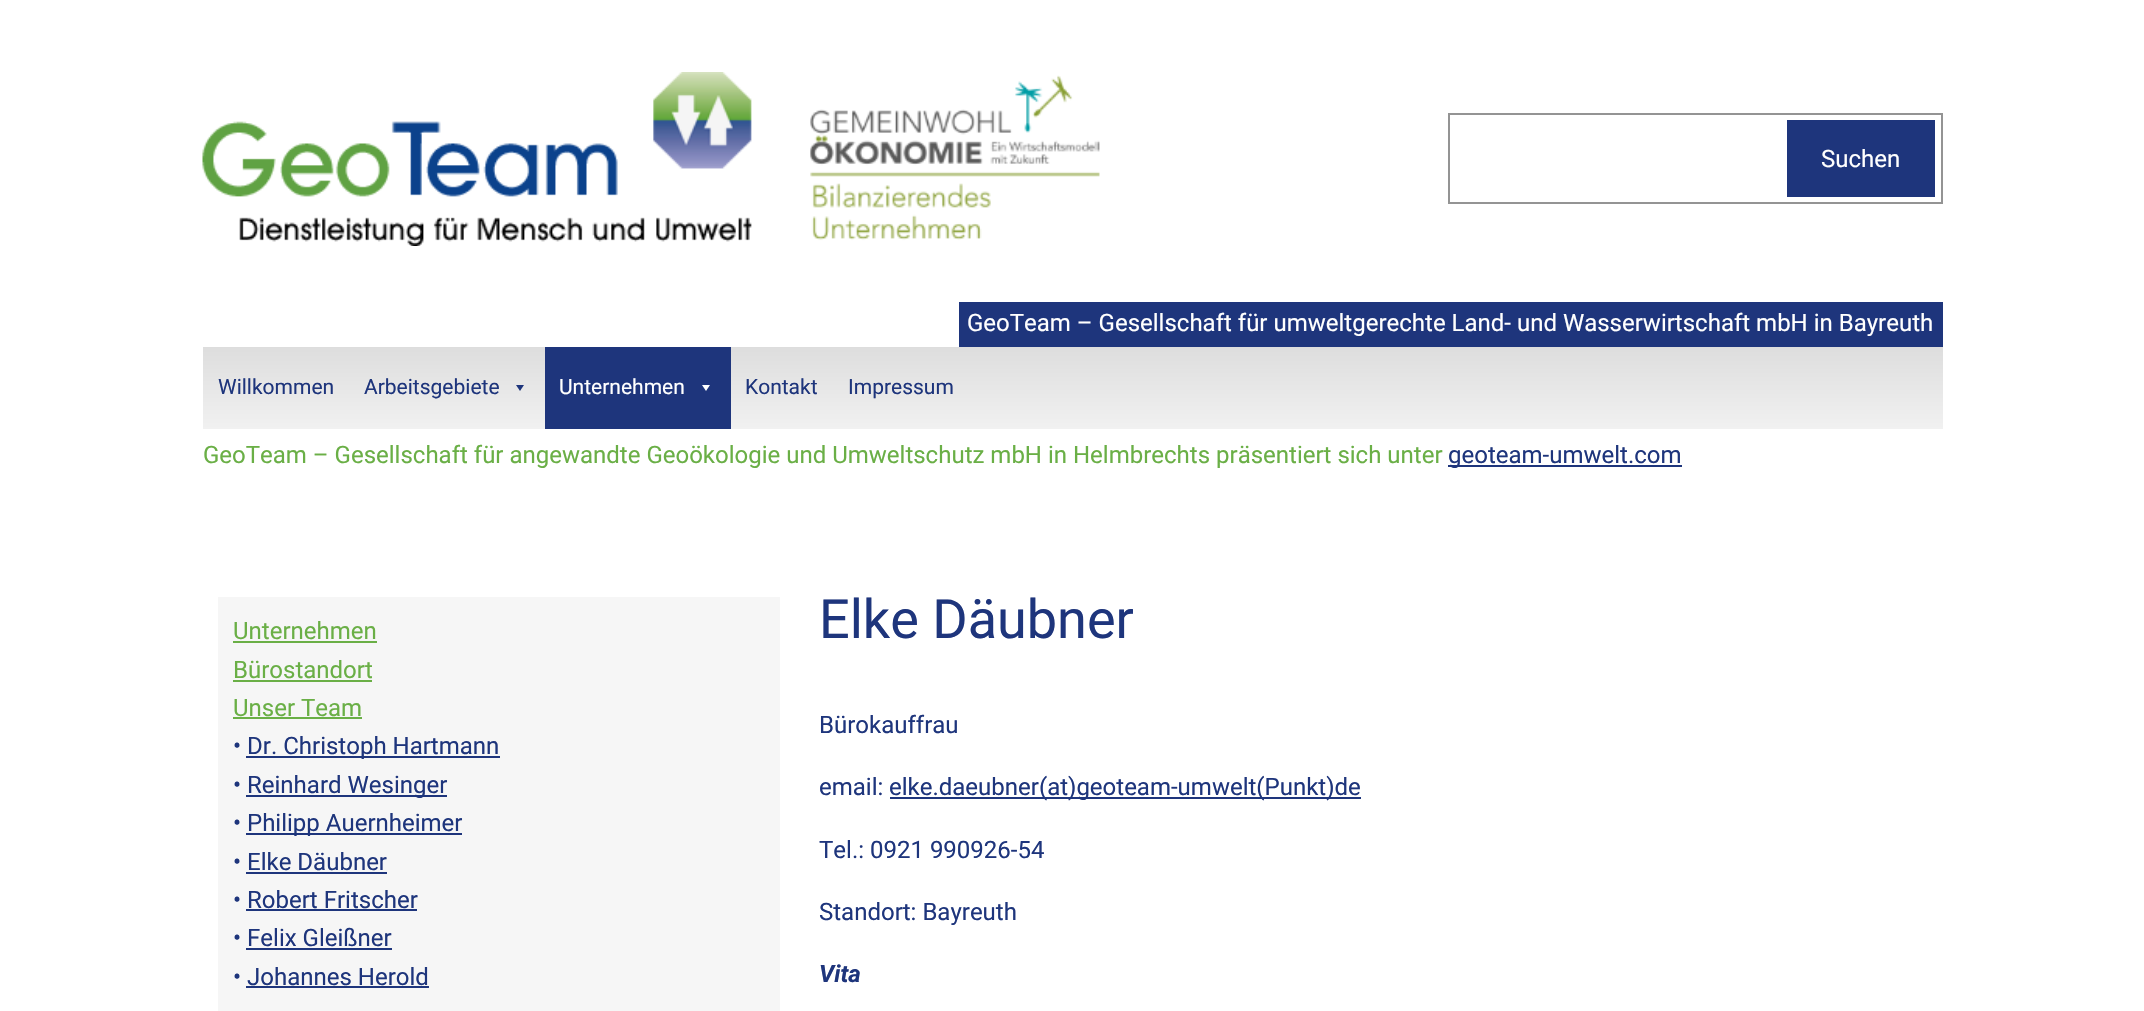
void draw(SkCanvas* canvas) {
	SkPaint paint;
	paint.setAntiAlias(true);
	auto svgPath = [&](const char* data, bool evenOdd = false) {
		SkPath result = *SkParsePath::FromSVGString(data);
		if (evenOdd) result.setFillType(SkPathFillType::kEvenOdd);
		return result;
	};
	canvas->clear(0xffffffff);
	canvas->drawImageRect(SkImages::DeferredFromEncodedData(SkData::MakeFromFileName("img1.png")), SkRect::MakeXYWH(202, 72, 898, 174), SkSamplingOptions());
	paint.setStroke(true);
	paint.setStrokeWidth(2);
	paint.setColor(0xff949494);
	canvas->drawRect(SkRect::MakeXYWH(1449, 114, 493, 89), paint);
	paint.setStroke(false);
	paint.setColor(0xff1e357c);
	canvas->drawRect(SkRect::MakeXYWH(1787, 120, 148, 77), paint);
	SkFont f1(fontMgr->matchFamilyStyle("Roboto", SkFontStyle::Normal()), 24);
	f1.setSubpixel(true);
	paint.setColor(0xffffffff);
	canvas->drawString("Suchen", 1821, 167, f1, paint);
	paint.setColor(0xff1e357c);
	canvas->drawRect(SkRect::MakeXYWH(959, 302, 984, 45), paint);
	paint.setColor(0xffffffff);
	canvas->drawString("GeoTeam – Gesellschaft für umweltgerechte Land- und Wasserwirtschaft mbH in Bayreuth", 967, 331, f1, paint);
	{
		const SkColor colors[] = {0xffdddddd, 0xfff1f1f1};
		const float stops[] = {0, 1};
		const SkPoint ends[] = {{1073, 346}, {1073, 429}};
		paint.setShader(SkGradientShader::MakeLinear(ends, colors, stops, 2, SkTileMode::kClamp));
		paint.setAlpha(255);
	}
	canvas->drawRect(SkRect::MakeXYWH(203, 347, 1740, 82), paint);
	SkFont f2(fontMgr->matchFamilyStyle("Roboto", SkFontStyle::Normal()), 21);
	f2.setSubpixel(true);
	paint.setShader(nullptr);
	paint.setColor(0xff1e357c);
	canvas->drawString("Willkommen", 218, 394, f2, paint);
	canvas->drawString("Arbeitsgebiete", 364, 394, f2, paint);
	canvas->drawPath(svgPath("M524 385L520 391L516 385Z"), paint);
	canvas->drawRect(SkRect::MakeXYWH(545, 347, 186, 82), paint);
	paint.setColor(0xffffffff);
	canvas->drawString("Unternehmen", 559, 394, f2, paint);
	canvas->drawPath(svgPath("M710 385L706 391L702 385Z"), paint);
	paint.setColor(0xff1e357c);
	canvas->drawString("Kontakt", 745, 394, f2, paint);
	canvas->drawString("Impressum", 848, 394, f2, paint);
	paint.setColor(0xff6aaf46);
	canvas->drawString("GeoTeam – Gesellschaft für angewandte Geoökologie und Umweltschutz mbH in Helmbrechts präsentiert sich unter", 203, 463, f1, paint);
	paint.setColor(0xff1e357c);
	canvas->drawRect(SkRect::MakeXYWH(1448, 465, 234, 2), paint);
	canvas->drawString("geoteam-umwelt.com", 1448, 463, f1, paint);
	paint.setColor(0xfff6f6f6);
	canvas->drawRect(SkRect::MakeXYWH(218, 597, 562, 414), paint);
	paint.setColor(0xff6aaf46);
	canvas->drawString("Unternehmen", 233, 639, f1, paint);
	canvas->drawRect(SkRect::MakeXYWH(233, 641, 144, 2), paint);
	canvas->drawString("Bürostandort", 233, 678, f1, paint);
	canvas->drawRect(SkRect::MakeXYWH(233, 680, 139, 2), paint);
	canvas->drawString("Unser Team", 233, 716, f1, paint);
	canvas->drawRect(SkRect::MakeXYWH(233, 717, 129, 2), paint);
	paint.setColor(0xff1e357c);
	canvas->drawString("•", 233, 754, f1, paint);
	canvas->drawRect(SkRect::MakeXYWH(246, 756, 254, 2), paint);
	canvas->drawString("Dr. Christoph Hartmann", 247, 754, f1, paint);
	canvas->drawString("•", 233, 793, f1, paint);
	canvas->drawRect(SkRect::MakeXYWH(246, 795, 201, 2), paint);
	canvas->drawString("Reinhard Wesinger", 247, 793, f1, paint);
	canvas->drawString("•", 233, 831, f1, paint);
	canvas->drawRect(SkRect::MakeXYWH(246, 833, 216, 2), paint);
	canvas->drawString("Philipp Auernheimer", 247, 831, f1, paint);
	canvas->drawString("• Elke Däubner", 233, 870, f1, paint);
	canvas->drawRect(SkRect::MakeXYWH(246, 872, 141, 2), paint);
	canvas->drawString("• Robert Fritscher", 233, 908, f1, paint);
	canvas->drawRect(SkRect::MakeXYWH(246, 909, 171, 2), paint);
	canvas->drawString("• Felix Gleißner", 233, 946, f1, paint);
	canvas->drawRect(SkRect::MakeXYWH(246, 948, 146, 2), paint);
	canvas->drawString("• Johannes Herold", 233, 985, f1, paint);
	canvas->drawRect(SkRect::MakeXYWH(246, 986, 183, 2), paint);
	SkFont f3(fontMgr->matchFamilyStyle("Roboto", SkFontStyle::Normal()), 54);
	f3.setSubpixel(true);
	canvas->drawString("Elke Däubner", 819, 638, f3, paint);
	canvas->drawString("Bürokauffrau", 819, 733, f1, paint);
	canvas->drawString("email:", 819, 795, f1, paint);
	canvas->drawRect(SkRect::MakeXYWH(890, 797, 471, 2), paint);
	canvas->drawString("elke.daeubner(at)geoteam-umwelt(Punkt)de", 889, 795, f1, paint);
	canvas->drawString("Tel.: 0921 990926-54", 819, 858, f1, paint);
	canvas->drawString("Standort: Bayreuth", 819, 920, f1, paint);
	SkFont f4(fontMgr->matchFamilyStyle("Roboto", SkFontStyle::BoldItalic()), 24);
	f4.setSubpixel(true);
	canvas->drawString("Vita", 819, 982, f4, paint);
}
